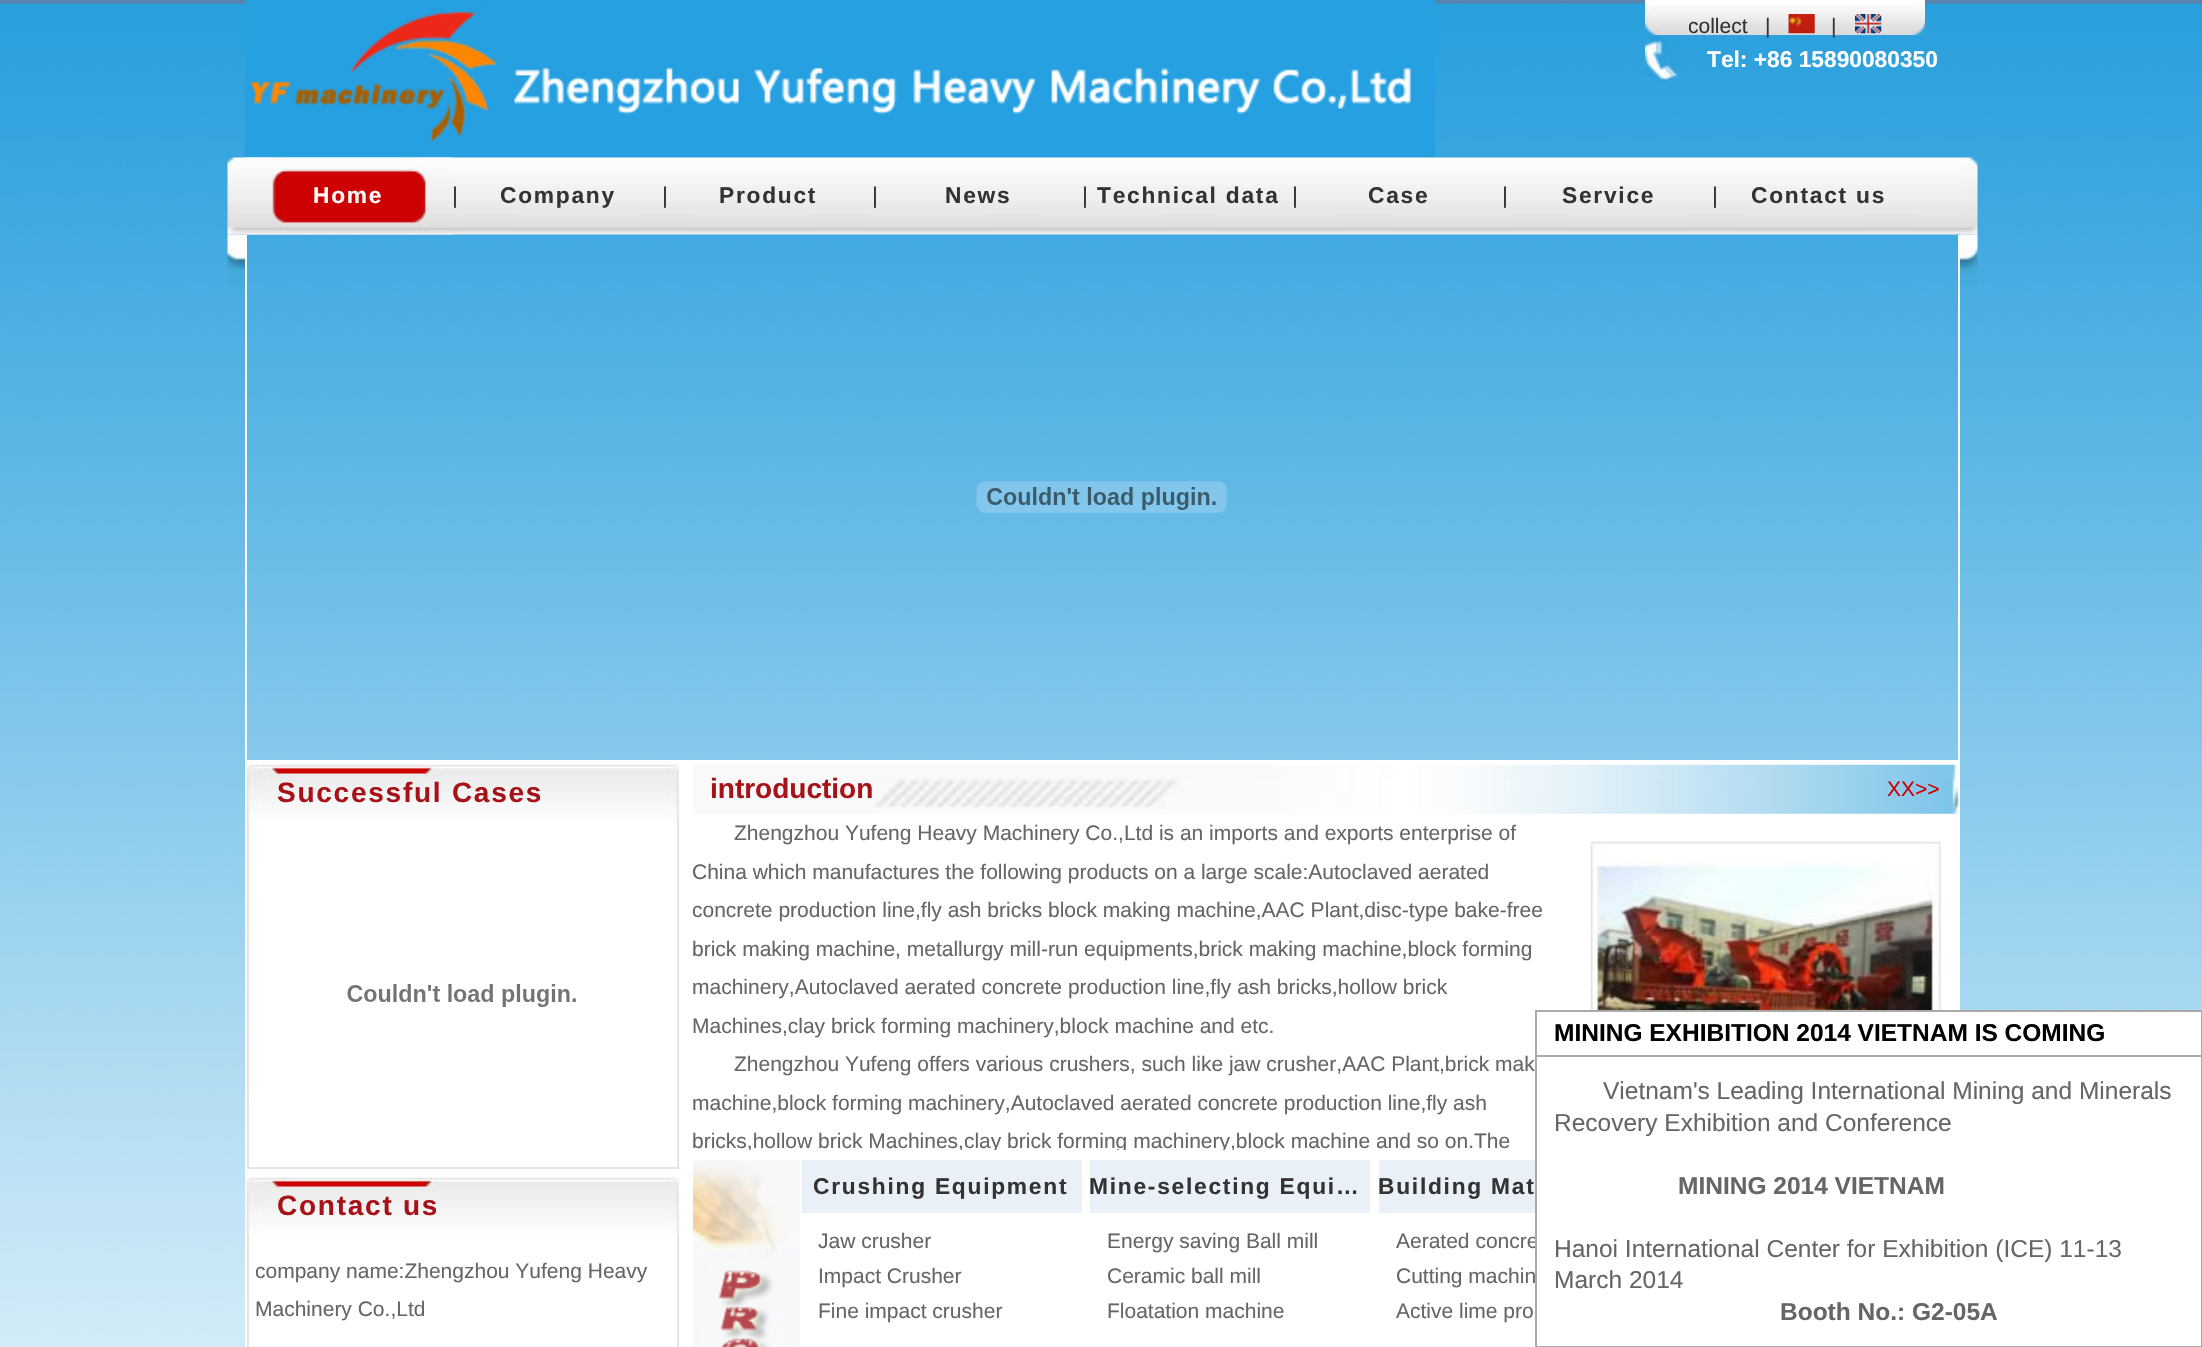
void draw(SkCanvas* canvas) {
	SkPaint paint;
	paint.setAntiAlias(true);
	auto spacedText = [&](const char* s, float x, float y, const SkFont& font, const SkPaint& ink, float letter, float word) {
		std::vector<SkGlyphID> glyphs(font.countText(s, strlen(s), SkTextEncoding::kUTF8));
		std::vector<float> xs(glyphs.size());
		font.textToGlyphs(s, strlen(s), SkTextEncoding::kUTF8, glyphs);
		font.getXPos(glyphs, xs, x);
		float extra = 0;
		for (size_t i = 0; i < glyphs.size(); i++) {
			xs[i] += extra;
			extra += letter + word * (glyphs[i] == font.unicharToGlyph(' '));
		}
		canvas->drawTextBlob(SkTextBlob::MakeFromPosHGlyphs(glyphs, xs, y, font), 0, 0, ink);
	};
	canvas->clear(0xffffffff);
	canvas->drawImageRect(SkImages::DeferredFromEncodedData(SkData::MakeFromFileName("img1.png")), SkRect::MakeXYWH(0, 0, 2202, 1347), SkSamplingOptions());
	canvas->drawImageRect(SkImages::DeferredFromEncodedData(SkData::MakeFromFileName("img2.png")), SkRect::MakeXYWH(245, 0, 1190, 158), SkSamplingOptions());
	canvas->drawImageRect(SkImages::DeferredFromEncodedData(SkData::MakeFromFileName("img3.png")), SkRect::MakeXYWH(1645, 0, 280, 35), SkSamplingOptions());
	SkFont f1(fontMgr->matchFamilyStyle("Liberation Sans", SkFontStyle::Normal()), 21);
	f1.setSubpixel(true);
	paint.setColor(0xff333333);
	canvas->drawString("collect", 1688, 33, f1, paint);
	canvas->drawString("|", 1765, 33, f1, paint);
	canvas->drawImageRect(SkImages::DeferredFromEncodedData(SkData::MakeFromFileName("img4.png")), SkRect::MakeXYWH(1788, 14, 27, 20), SkSamplingOptions());
	canvas->drawString("|", 1831, 33, f1, paint);
	canvas->drawImageRect(SkImages::DeferredFromEncodedData(SkData::MakeFromFileName("img5.png")), SkRect::MakeXYWH(1855, 14, 27, 20), SkSamplingOptions());
	canvas->drawImageRect(SkImages::DeferredFromEncodedData(SkData::MakeFromFileName("img6.png")), SkRect::MakeXYWH(1645, 35, 32, 49), SkSamplingOptions());
	SkFont f2(fontMgr->matchFamilyStyle("Liberation Sans", SkFontStyle::Bold()), 22.75);
	f2.setSubpixel(true);
	paint.setColor(0xffffffff);
	canvas->drawString("Tel: +86 15890080350", 1707, 67, f2, paint);
	canvas->drawImageRect(SkImages::DeferredFromEncodedData(SkData::MakeFromFileName("img7.png")), SkRect::MakeXYWH(227, 157, 18, 78), SkSamplingOptions());
	canvas->drawImageRect(SkImages::DeferredFromEncodedData(SkData::MakeFromFileName("img8.png")), SkRect::MakeXYWH(245, 157, 1715, 78), SkSamplingOptions());
	canvas->drawImageRect(SkImages::DeferredFromEncodedData(SkData::MakeFromFileName("img9.png")), SkRect::MakeXYWH(245, 157, 209, 78), SkSamplingOptions());
	spacedText("Home", 313, 203, f2, paint, 1.75, 0);
	SkFont f3(fontMgr->matchFamilyStyle("Liberation Sans", SkFontStyle::Normal()), 22.75);
	f3.setSubpixel(true);
	paint.setColor(0xff333333);
	canvas->drawString("|", 452, 203, f3, paint);
	spacedText("Company", 500, 203, f2, paint, 1.75, 0);
	canvas->drawString("|", 662, 203, f3, paint);
	spacedText("Product", 719, 203, f2, paint, 1.75, 0);
	canvas->drawString("|", 872, 203, f3, paint);
	spacedText("News", 945, 203, f2, paint, 1.75, 0);
	canvas->drawString("|", 1082, 203, f3, paint);
	spacedText("Technical data", 1097, 203, f2, paint, 1.75, 0);
	canvas->drawString("|", 1292, 203, f3, paint);
	spacedText("Case", 1368, 203, f2, paint, 1.75, 0);
	canvas->drawString("|", 1502, 203, f3, paint);
	spacedText("Service", 1562, 203, f2, paint, 1.75, 0);
	canvas->drawString("|", 1712, 203, f3, paint);
	spacedText("Contact us", 1751, 203, f2, paint, 1.75, 0);
	canvas->drawImageRect(SkImages::DeferredFromEncodedData(SkData::MakeFromFileName("img10.png")), SkRect::MakeXYWH(1960, 157, 18, 78), SkSamplingOptions());
	canvas->drawImageRect(SkImages::DeferredFromEncodedData(SkData::MakeFromFileName("img11.png")), SkRect::MakeXYWH(227, 234, 18, 53), SkSamplingOptions());
	paint.setColor(0xffffffff);
	canvas->drawRect(SkRect::MakeXYWH(1958, 235, 2, 525), paint);
	canvas->drawRect(SkRect::MakeXYWH(245, 235, 2, 525), paint);
	canvas->drawImageRect(SkImages::DeferredFromEncodedData(SkData::MakeFromFileName("img12.png")), SkRect::MakeXYWH(976, 481, 251, 32), SkSamplingOptions());
	canvas->drawImageRect(SkImages::DeferredFromEncodedData(SkData::MakeFromFileName("img13.png")), SkRect::MakeXYWH(1960, 234, 18, 53), SkSamplingOptions());
	canvas->drawRect(SkRect::MakeXYWH(245, 760, 1715, 587), paint);
	canvas->drawImageRect(SkImages::DeferredFromEncodedData(SkData::MakeFromFileName("img14.png")), SkRect::MakeXYWH(246, 764, 433, 57), SkSamplingOptions());
	SkFont f4(fontMgr->matchFamilyStyle("Liberation Sans", SkFontStyle::Bold()), 28);
	f4.setSubpixel(true);
	paint.setColor(0xffa71219);
	spacedText("Successful Cases", 277, 802, f4, paint, 1.75, 0);
	paint.setColor(0xffe4e4e4);
	canvas->drawRect(SkRect::MakeXYWH(677, 821, 2, 348), paint);
	canvas->drawRect(SkRect::MakeXYWH(247, 1167, 432, 2), paint);
	canvas->drawRect(SkRect::MakeXYWH(247, 821, 2, 348), paint);
	canvas->drawImageRect(SkImages::DeferredFromEncodedData(SkData::MakeFromFileName("img15.png")), SkRect::MakeXYWH(347, 984, 229, 23), SkSamplingOptions());
	canvas->drawImageRect(SkImages::DeferredFromEncodedData(SkData::MakeFromFileName("img14.png")), SkRect::MakeXYWH(246, 1177, 433, 57), SkSamplingOptions());
	paint.setColor(0xffa71219);
	spacedText("Contact us", 277, 1215, f4, paint, 1.75, 0);
	paint.setColor(0xffe4e4e4);
	canvas->drawRect(SkRect::MakeXYWH(677, 1234, 2, 113), paint);
	canvas->drawRect(SkRect::MakeXYWH(247, 1234, 2, 113), paint);
	canvas->save();
	canvas->clipRect(SkRect::MakeXYWH(256, 1234, 420, 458));
	paint.setColor(0xff666666);
	canvas->drawString("company name:Zhengzhou Yufeng Heavy", 255, 1278, f1, paint);
	canvas->restore();
	canvas->drawString("Machinery Co.,Ltd", 255, 1316, f1, paint);
	canvas->drawImageRect(SkImages::DeferredFromEncodedData(SkData::MakeFromFileName("img16.png")), SkRect::MakeXYWH(693, 764, 1266, 50), SkSamplingOptions());
	paint.setColor(0xffa71219);
	canvas->drawString("introduction", 710, 798, f4, paint);
	paint.setColor(0xffcc0000);
	canvas->drawString("XX>>", 1887, 796, f1, paint);
	paint.setColor(0xff666666);
	canvas->drawString("Zhengzhou Yufeng Heavy Machinery Co.,Ltd is an imports and exports enterprise of", 734, 840, f1, paint);
	canvas->drawString("China which manufactures the following products on a large scale:Autoclaved aerated", 692, 879, f1, paint);
	canvas->drawString("concrete production line,fly ash bricks block making machine,AAC Plant,disc-type bake-free", 692, 917, f1, paint);
	canvas->drawString("brick making machine, metallurgy mill-run equipments,brick making machine,block forming", 692, 956, f1, paint);
	canvas->drawString("machinery,Autoclaved aerated concrete production line,fly ash bricks,hollow brick", 692, 994, f1, paint);
	canvas->drawString("Machines,clay brick forming machinery,block machine and etc.", 692, 1033, f1, paint);
	canvas->drawString("Zhengzhou Yufeng offers various crushers, such like jaw crusher,AAC Plant,brick mak", 734, 1071, f1, paint);
	canvas->drawString("machine,block forming machinery,Autoclaved aerated concrete production line,fly ash", 692, 1110, f1, paint);
	canvas->save();
	canvas->clipRect(SkRect::MakeXYWH(693, 814, 875, 336));
	canvas->drawString("bricks,hollow brick Machines,clay brick forming machinery,block machine and so on.The", 692, 1148, f1, paint);
	canvas->restore();
	canvas->drawImageRect(SkImages::DeferredFromEncodedData(SkData::MakeFromFileName("img17.png")), SkRect::MakeXYWH(1590, 841, 351, 169), SkSamplingOptions());
	canvas->drawImageRect(SkImages::DeferredFromEncodedData(SkData::MakeFromFileName("img18.png")), SkRect::MakeXYWH(693, 1160, 107, 187), SkSamplingOptions());
	paint.setColor(0xffe9f0f7);
	canvas->drawRect(SkRect::MakeXYWH(802, 1160, 280, 53), paint);
	paint.setColor(0xff333333);
	spacedText("Crushing Equipment", 813, 1194, f2, paint, 1.75, 0);
	paint.setColor(0xff666666);
	canvas->drawString("Jaw crusher", 818, 1248, f1, paint);
	canvas->drawString("Impact Crusher", 818, 1283, f1, paint);
	canvas->drawString("Fine impact crusher", 818, 1318, f1, paint);
	paint.setColor(0xffe9f0f7);
	canvas->drawRect(SkRect::MakeXYWH(1090, 1160, 280, 53), paint);
	paint.setColor(0xff333333);
	spacedText("Mine-selecting Equi…", 1089, 1194, f2, paint, 1.75, 0);
	paint.setColor(0xff666666);
	canvas->drawString("Energy saving Ball mill", 1107, 1248, f1, paint);
	canvas->drawString("Ceramic ball mill", 1107, 1283, f1, paint);
	canvas->drawString("Floatation machine", 1107, 1318, f1, paint);
	paint.setColor(0xffe9f0f7);
	canvas->drawRect(SkRect::MakeXYWH(1379, 1160, 156, 53), paint);
	paint.setColor(0xff333333);
	spacedText("Building Mat", 1378, 1194, f2, paint, 1.75, 0);
	paint.setColor(0xff666666);
	canvas->drawString("Aerated concre", 1396, 1248, f1, paint);
	canvas->drawString("Cutting machin", 1396, 1283, f1, paint);
	canvas->drawString("Active lime pro", 1396, 1318, f1, paint);
	paint.setColor(0xffffffff);
	canvas->drawRect(SkRect::MakeXYWH(1536, 1011, 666, 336), paint);
	paint.setStroke(true);
	paint.setStrokeWidth(2);
	paint.setColor(0xffaaaaaa);
	canvas->drawRect(SkRect::MakeXYWH(1536, 1011, 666, 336), paint);
	paint.setStroke(false);
	canvas->drawRect(SkRect::MakeXYWH(1537, 1055, 665, 2), paint);
	SkFont f5(fontMgr->matchFamilyStyle("Liberation Sans", SkFontStyle::Bold()), 24.5);
	f5.setSubpixel(true);
	paint.setColor(0xff000000);
	canvas->drawString("MINING EXHIBITION 2014 VIETNAM IS COMING", 1554, 1041, f5, paint);
	SkFont f6(fontMgr->matchFamilyStyle("Liberation Sans", SkFontStyle::Normal()), 24.5);
	f6.setSubpixel(true);
	paint.setColor(0xff666666);
	canvas->drawString("Vietnam's Leading International Mining and Minerals", 1603, 1099, f6, paint);
	canvas->drawString("Recovery Exhibition and Conference", 1554, 1131, f6, paint);
	canvas->drawString("MINING 2014 VIETNAM", 1678, 1194, f5, paint);
	canvas->drawString("Hanoi International Center for Exhibition (ICE) 11-13", 1554, 1257, f6, paint);
	canvas->drawString("March 2014", 1554, 1288, f6, paint);
	canvas->drawString("Booth No.: G2-05A", 1780, 1320, f5, paint);
}
